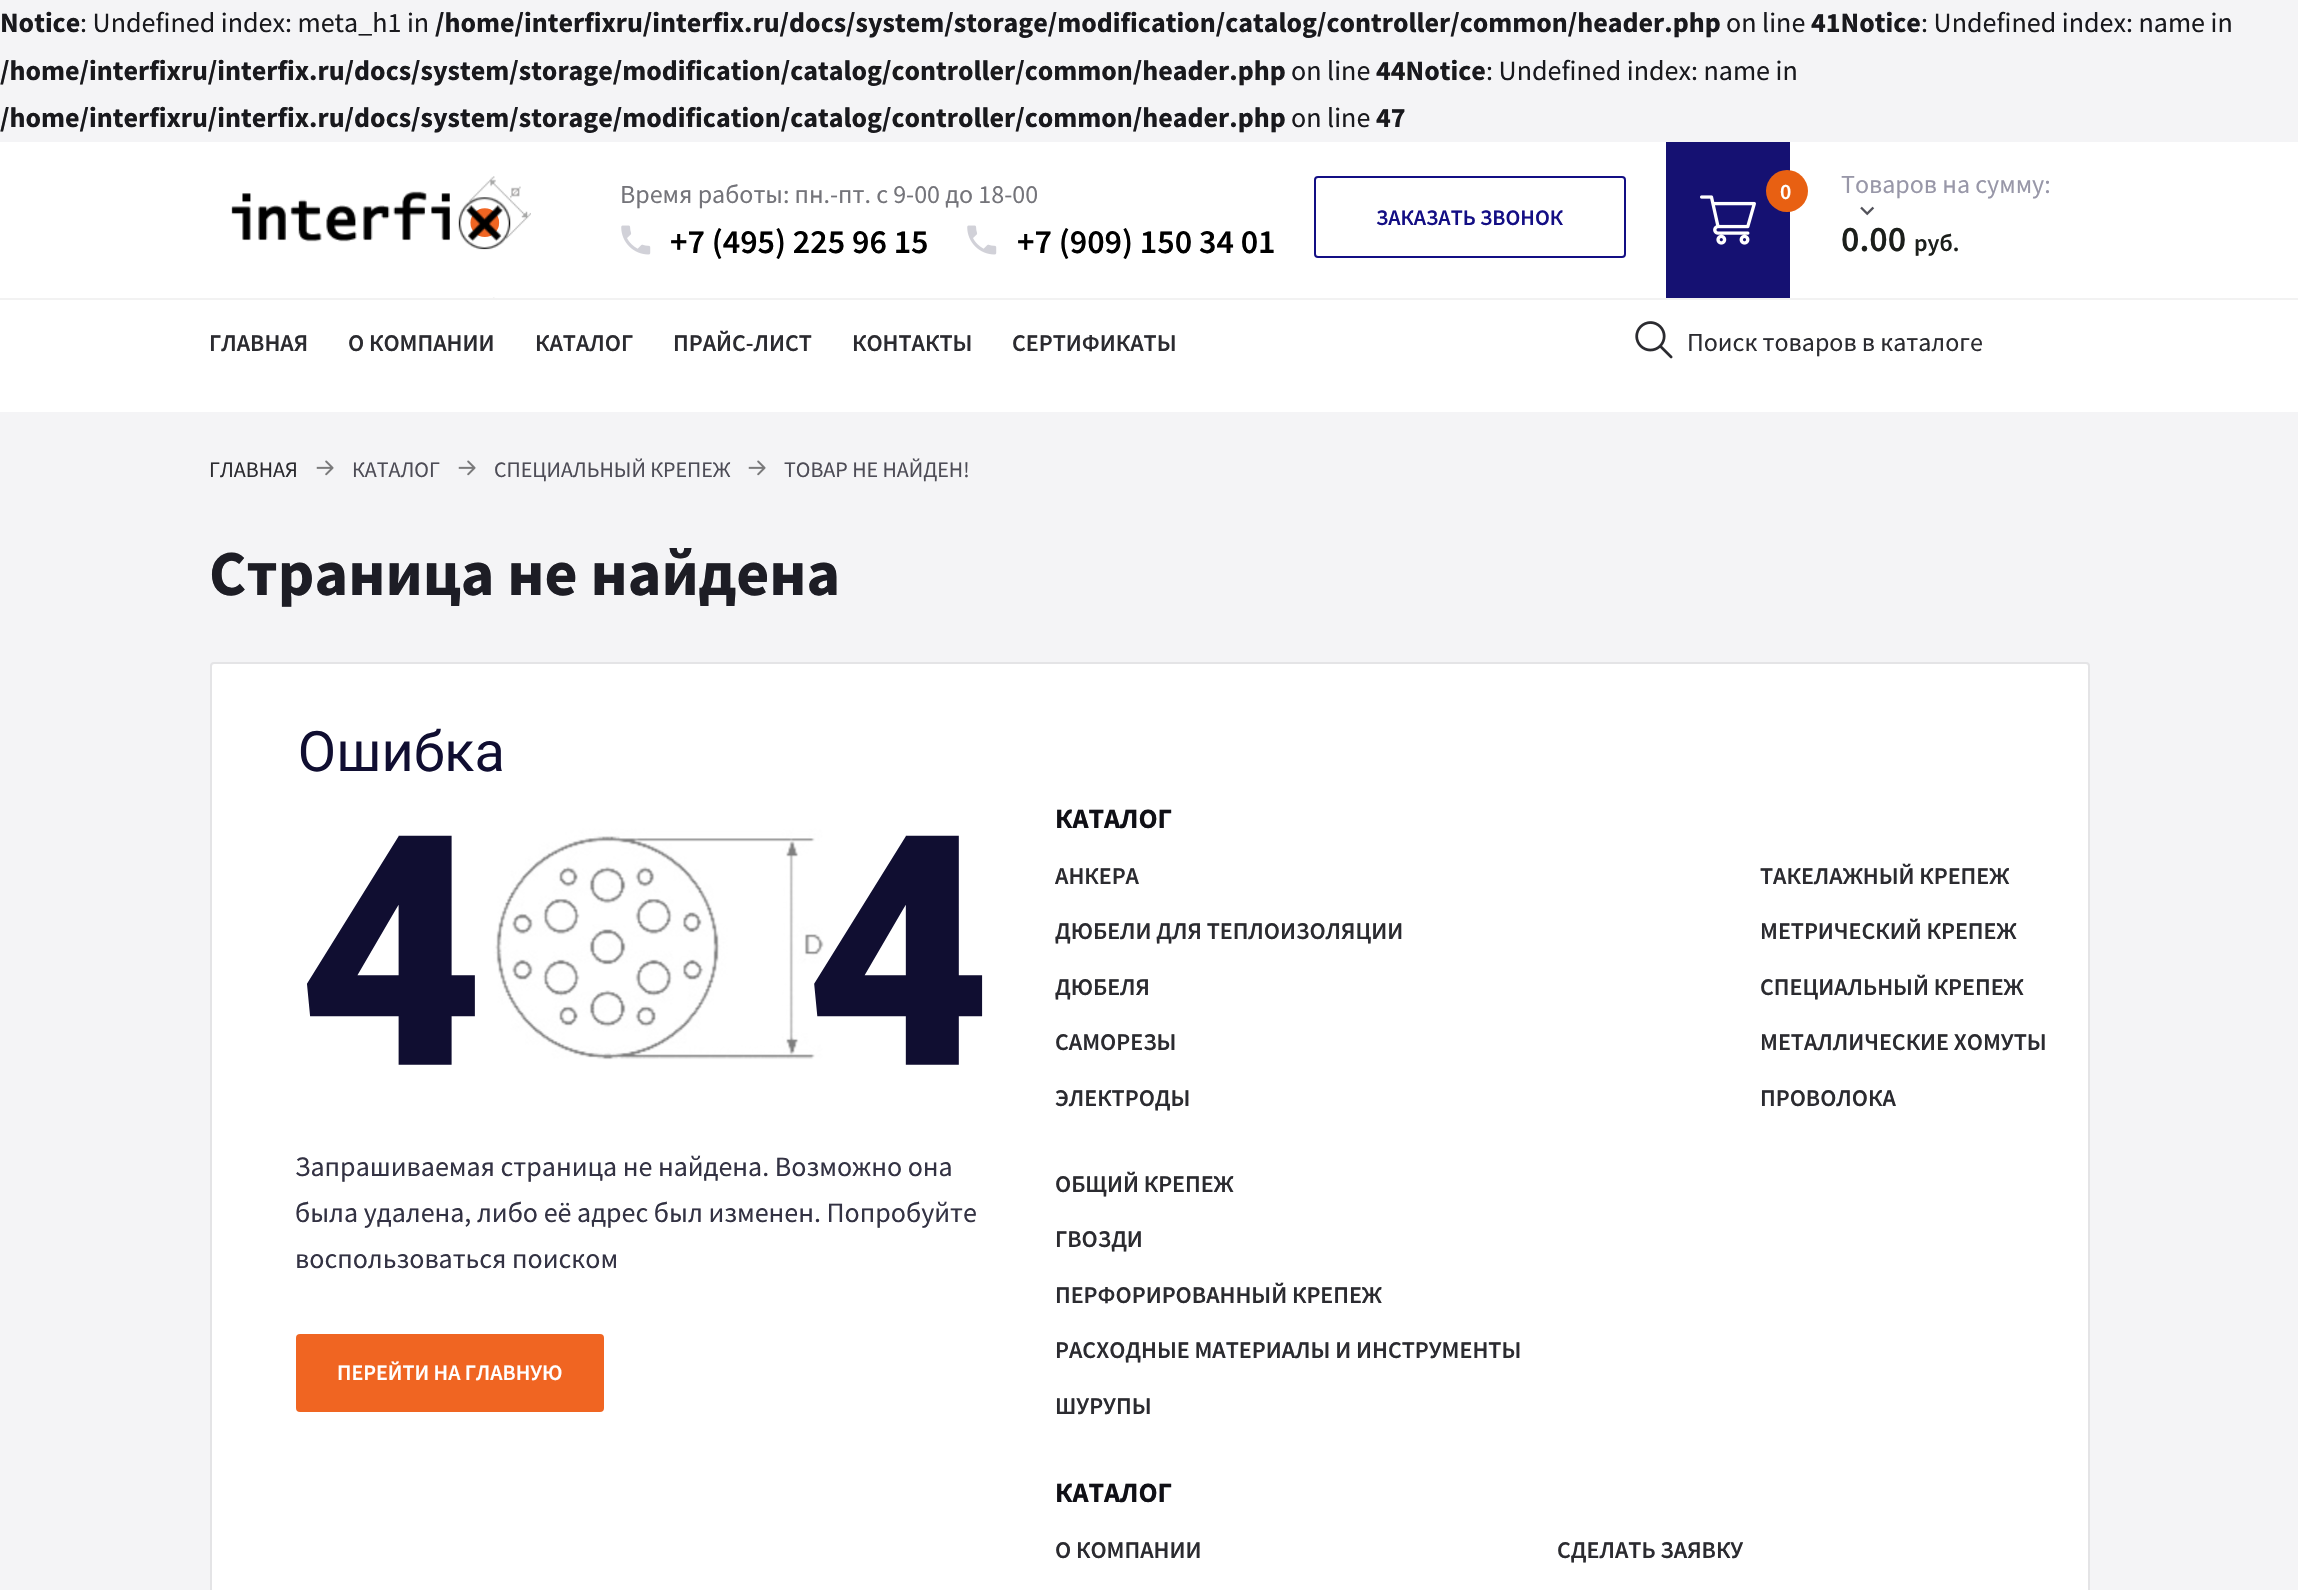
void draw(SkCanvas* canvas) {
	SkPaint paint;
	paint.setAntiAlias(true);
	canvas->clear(0xfff4f4f6);
	SkFont f1(fontMgr->matchFamilyStyle("Source Sans Pro", SkFontStyle::Bold()), 28);
	f1.setSubpixel(true);
	paint.setColor(0xff19191d);
	canvas->drawString("Notice", 0, 32, f1, paint);
	SkFont f2(fontMgr->matchFamilyStyle("Source Sans Pro", SkFontStyle::Normal()), 28);
	f2.setSubpixel(true);
	canvas->drawString(": Undefined index: meta_h1 in", 80, 32, f2, paint);
	canvas->drawString("/home/interfixru/interfix.ru/docs/system/storage/modification/catalog/controller/common/header.php", 435, 32, f1, paint);
	canvas->drawString("on line", 1726, 32, f2, paint);
	canvas->drawString("41Notice", 1811, 32, f1, paint);
	canvas->drawString(": Undefined index: name in", 1921, 32, f2, paint);
	canvas->drawString("/home/interfixru/interfix.ru/docs/system/storage/modification/catalog/controller/common/header.php", 0, 80, f1, paint);
	canvas->drawString("on line", 1291, 80, f2, paint);
	canvas->drawString("44Notice", 1376, 80, f1, paint);
	canvas->drawString(": Undefined index: name in", 1486, 80, f2, paint);
	canvas->drawString("/home/interfixru/interfix.ru/docs/system/storage/modification/catalog/controller/common/header.php", 0, 127, f1, paint);
	canvas->drawString("on line", 1291, 127, f2, paint);
	canvas->drawString("47", 1376, 127, f1, paint);
	paint.setColor(0xffffffff);
	canvas->drawRect(SkRect::MakeXYWH(0, 142, 2298, 270), paint);
	canvas->drawImageRect(SkImages::DeferredFromEncodedData(SkData::MakeFromFileName("img1.png")), SkRect::MakeXYWH(231, 176, 300, 122), SkSamplingOptions());
	SkFont f3(fontMgr->matchFamilyStyle("Source Sans Pro", SkFontStyle::Normal()), 26);
	f3.setSubpixel(true);
	paint.setColor(0xff74747a);
	canvas->drawString("Время работы: пн.-пт. с 9-00 до 18-00", 620, 203, f3, paint);
	canvas->drawImageRect(SkImages::DeferredFromEncodedData(SkData::MakeFromFileName("img2.png")), SkRect::MakeXYWH(621, 225, 30, 30), SkSamplingOptions());
	SkFont f4(fontMgr->matchFamilyStyle("Source Sans Pro", SkFontStyle(600, SkFontStyle::kNormal_Width, SkFontStyle::kUpright_Slant)), 34);
	f4.setSubpixel(true);
	paint.setColor(0xff000000);
	canvas->drawString("+7 (495) 225 96 15", 670, 253, f4, paint);
	canvas->drawImageRect(SkImages::DeferredFromEncodedData(SkData::MakeFromFileName("img2.png")), SkRect::MakeXYWH(967, 225, 30, 30), SkSamplingOptions());
	canvas->drawString("+7 (909) 150 34 01", 1017, 253, f4, paint);
	paint.setStroke(true);
	paint.setStrokeWidth(2);
	paint.setColor(0xff130e84);
	canvas->drawRoundRect(SkRect::MakeXYWH(1315, 177, 310, 80), 3, 3, paint);
	SkFont f5(fontMgr->matchFamilyStyle("Source Sans Pro", SkFontStyle(600, SkFontStyle::kNormal_Width, SkFontStyle::kUpright_Slant)), 22);
	f5.setSubpixel(true);
	paint.setStroke(false);
	canvas->drawString("ЗАКАЗАТЬ ЗВОНОК", 1376, 225, f5, paint);
	paint.setColor(0xff151172);
	canvas->drawRect(SkRect::MakeXYWH(1666, 142, 124, 156), paint);
	paint.setColor(0xffe86012);
	canvas->drawCircle(1787, 191, 21, paint);
	paint.setColor(0xffffffff);
	canvas->drawString("0", 1780, 199, f5, paint);
	canvas->drawImageRect(SkImages::DeferredFromEncodedData(SkData::MakeFromFileName("img3.png")), SkRect::MakeXYWH(1700, 195, 56, 50), SkSamplingOptions());
	paint.setColor(0xff9897a8);
	canvas->drawString("Товаров на сумму:", 1841, 193, f3, paint);
	canvas->drawImageRect(SkImages::DeferredFromEncodedData(SkData::MakeFromFileName("img4.png")), SkRect::MakeXYWH(1860, 206, 15, 10), SkSamplingOptions());
	SkFont f6(fontMgr->matchFamilyStyle("Source Sans Pro", SkFontStyle(600, SkFontStyle::kNormal_Width, SkFontStyle::kUpright_Slant)), 36);
	f6.setSubpixel(true);
	paint.setColor(0xff1c1f1b);
	canvas->drawString("0.00", 1841, 251, f6, paint);
	SkFont f7(fontMgr->matchFamilyStyle("Source Sans Pro", SkFontStyle(600, SkFontStyle::kNormal_Width, SkFontStyle::kUpright_Slant)), 24);
	f7.setSubpixel(true);
	canvas->drawString("руб.", 1914, 251, f7, paint);
	paint.setColor(0xfff2f2f2);
	canvas->drawRect(SkRect::MakeXYWH(0, 298, 2298, 2), paint);
	paint.setColor(0xff2b2b30);
	canvas->drawString("ГЛАВНАЯ", 209, 351, f7, paint);
	canvas->drawString("О КОМПАНИИ", 348, 351, f7, paint);
	canvas->drawString("КАТАЛОГ", 535, 351, f7, paint);
	canvas->drawString("ПРАЙС-ЛИСТ", 673, 351, f7, paint);
	canvas->drawString("КОНТАКТЫ", 852, 351, f7, paint);
	canvas->drawString("СЕРТИФИКАТЫ", 1012, 351, f7, paint);
	canvas->drawImageRect(SkImages::DeferredFromEncodedData(SkData::MakeFromFileName("img5.png")), SkRect::MakeXYWH(1635, 321, 38, 38), SkSamplingOptions());
	canvas->drawString("Поиск товаров в каталоге", 1687, 351, f3, paint);
	SkFont f8(fontMgr->matchFamilyStyle("Source Sans Pro", SkFontStyle::Normal()), 22);
	f8.setSubpixel(true);
	canvas->drawString("ГЛАВНАЯ", 209, 477, f8, paint);
	canvas->drawImageRect(SkImages::DeferredFromEncodedData(SkData::MakeFromFileName("img6.png")), SkRect::MakeXYWH(316, 460, 18, 16), SkSamplingOptions());
	paint.setColor(0xff4d4c56);
	canvas->drawString("КАТАЛОГ", 352, 477, f8, paint);
	canvas->drawImageRect(SkImages::DeferredFromEncodedData(SkData::MakeFromFileName("img6.png")), SkRect::MakeXYWH(458, 460, 18, 16), SkSamplingOptions());
	canvas->drawString("СПЕЦИАЛЬНЫЙ КРЕПЕЖ", 494, 477, f8, paint);
	canvas->drawImageRect(SkImages::DeferredFromEncodedData(SkData::MakeFromFileName("img6.png")), SkRect::MakeXYWH(748, 460, 18, 16), SkSamplingOptions());
	canvas->drawString("ТОВАР НЕ НАЙДЕН!", 784, 477, f8, paint);
	SkFont f9(fontMgr->matchFamilyStyle("Source Sans Pro", SkFontStyle::Bold()), 64);
	f9.setSubpixel(true);
	paint.setColor(0xff1d1d25);
	canvas->drawString("Страница не найдена", 209, 595, f9, paint);
	paint.setColor(0xffffffff);
	canvas->drawRoundRect(SkRect::MakeXYWH(211, 663, 1878, 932), 3, 3, paint);
	paint.setStroke(true);
	paint.setColor(0xffe4e4e6);
	canvas->drawRoundRect(SkRect::MakeXYWH(211, 663, 1878, 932), 3, 3, paint);
	canvas->drawImageRect(SkImages::DeferredFromEncodedData(SkData::MakeFromFileName("img7.png")), SkRect::MakeXYWH(300, 728, 683, 337), SkSamplingOptions());
	paint.setStroke(false);
	paint.setColor(0xff333243);
	canvas->drawString("Запрашиваемая страница не найдена. Возможно она", 295, 1176, f2, paint);
	canvas->drawString("была удалена, либо её адрес был изменен. Попробуйте", 295, 1222, f2, paint);
	canvas->drawString("воспользоваться поиском", 295, 1268, f2, paint);
	paint.setColor(0xfff06522);
	canvas->drawRoundRect(SkRect::MakeXYWH(296, 1334, 308, 78), 4, 4, paint);
	paint.setColor(0xffffffff);
	canvas->drawString("ПЕРЕЙТИ НА ГЛАВНУЮ", 337, 1380, f5, paint);
	paint.setColor(0xff101016);
	canvas->drawString("КАТАЛОГ", 1055, 828, f1, paint);
	paint.setColor(0xff2b2b30);
	canvas->drawString("АНКЕРА", 1055, 884, f7, paint);
	canvas->drawString("ДЮБЕЛИ ДЛЯ ТЕПЛОИЗОЛЯЦИИ", 1055, 939, f7, paint);
	canvas->drawString("ДЮБЕЛЯ", 1055, 995, f7, paint);
	canvas->drawString("САМОРЕЗЫ", 1055, 1050, f7, paint);
	canvas->drawString("ЭЛЕКТРОДЫ", 1055, 1106, f7, paint);
	canvas->drawString("ТАКЕЛАЖНЫЙ КРЕПЕЖ", 1760, 884, f7, paint);
	canvas->drawString("МЕТРИЧЕСКИЙ КРЕПЕЖ", 1760, 939, f7, paint);
	canvas->drawString("СПЕЦИАЛЬНЫЙ КРЕПЕЖ", 1760, 995, f7, paint);
	canvas->drawString("МЕТАЛЛИЧЕСКИЕ ХОМУТЫ", 1760, 1050, f7, paint);
	canvas->drawString("ПРОВОЛОКА", 1760, 1106, f7, paint);
	canvas->drawString("ОБЩИЙ КРЕПЕЖ", 1055, 1192, f7, paint);
	canvas->drawString("ГВОЗДИ", 1055, 1247, f7, paint);
	canvas->drawString("ПЕРФОРИРОВАННЫЙ КРЕПЕЖ", 1055, 1303, f7, paint);
	canvas->drawString("РАСХОДНЫЕ МАТЕРИАЛЫ И ИНСТРУМЕНТЫ", 1055, 1358, f7, paint);
	canvas->drawString("ШУРУПЫ", 1055, 1414, f7, paint);
	paint.setColor(0xff101016);
	canvas->drawString("КАТАЛОГ", 1055, 1502, f1, paint);
	paint.setColor(0xff2b2b30);
	canvas->drawString("О КОМПАНИИ", 1055, 1558, f7, paint);
	canvas->drawString("СДЕЛАТЬ ЗАЯВКУ", 1557, 1558, f7, paint);
}
